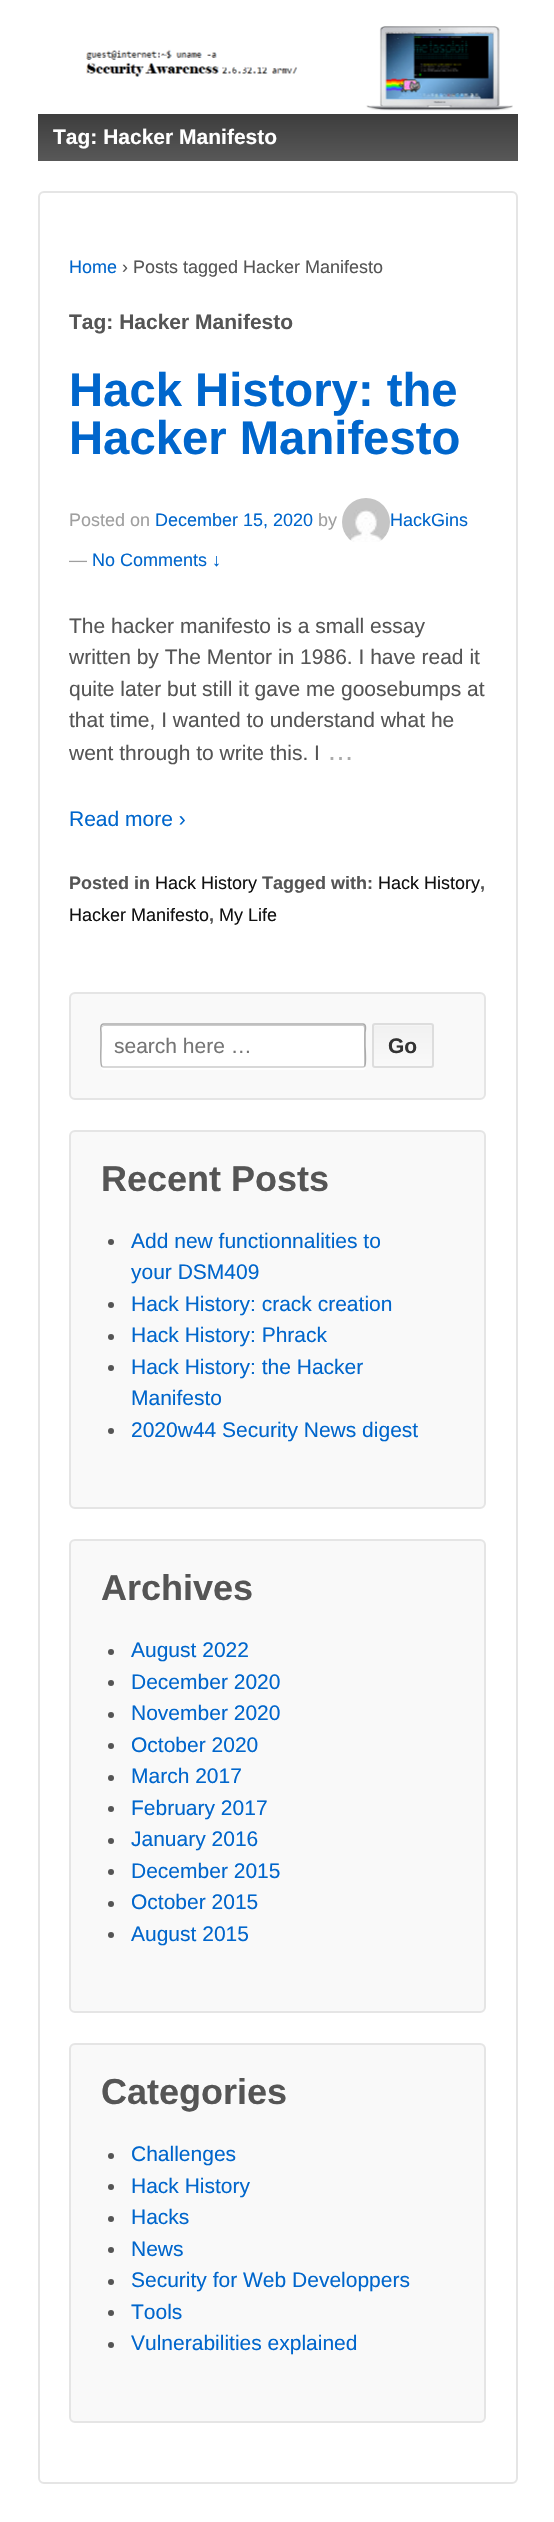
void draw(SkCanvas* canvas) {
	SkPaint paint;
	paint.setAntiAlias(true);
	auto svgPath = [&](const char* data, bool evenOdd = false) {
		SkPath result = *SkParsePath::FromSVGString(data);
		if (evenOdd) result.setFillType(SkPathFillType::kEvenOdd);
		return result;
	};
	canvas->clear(0xffffffff);
	canvas->drawImageRect(SkImages::DeferredFromEncodedData(SkData::MakeFromFileName("img1.png")), SkRect::MakeXYWH(86, 26, 427, 85), SkSamplingOptions());
	{
		const SkColor colors[] = {0xff585858, 0xff3d3d3d};
		const float stops[] = {0, 1};
		const SkPoint ends[] = {{278, 161}, {278, 114}};
		paint.setShader(SkGradientShader::MakeLinear(ends, colors, stops, 2, SkTileMode::kClamp));
		paint.setAlpha(255);
	}
	canvas->drawRect(SkRect::MakeXYWH(38, 114, 480, 47), paint);
	SkFont f1(fontMgr->matchFamilyStyle("Liberation Sans", SkFontStyle::Bold()), 21);
	f1.setSubpixel(true);
	paint.setShader(nullptr);
	paint.setColor(0xffffffff);
	canvas->drawString("Tag: Hacker Manifesto", 53, 144, f1, paint);
	paint.setStroke(true);
	paint.setStrokeWidth(2);
	paint.setColor(0xffe5e5e5);
	canvas->drawRoundRect(SkRect::MakeXYWH(39, 192, 478, 2291), 5, 5, paint);
	SkFont f2(fontMgr->matchFamilyStyle("Liberation Sans", SkFontStyle::Normal()), 18);
	f2.setSubpixel(true);
	paint.setStroke(false);
	paint.setColor(0xff0066cc);
	canvas->drawString("Home", 69, 273, f2, paint);
	paint.setColor(0xff555555);
	canvas->drawString("› Posts tagged Hacker Manifesto", 122, 273, f2, paint);
	canvas->drawString("Tag: Hacker Manifesto", 69, 329, f1, paint);
	SkFont f3(fontMgr->matchFamilyStyle("Liberation Sans", SkFontStyle::Bold()), 47.25);
	f3.setSubpixel(true);
	paint.setColor(0xff0066cc);
	canvas->drawString("Hack History: the", 69, 406, f3, paint);
	canvas->drawString("Hacker Manifesto", 69, 454, f3, paint);
	paint.setColor(0xff9f9f9f);
	canvas->drawString("Posted on", 69, 526, f2, paint);
	paint.setColor(0xff0066cc);
	canvas->drawString("December 15, 2020", 155, 526, f2, paint);
	paint.setColor(0xff9f9f9f);
	canvas->drawString("by", 318, 526, f2, paint);
	canvas->drawImageRect(SkImages::DeferredFromEncodedData(SkData::MakeFromFileName("img2.png")), SkRect::MakeXYWH(342, 498, 48, 44), SkSamplingOptions());
	paint.setColor(0xff0066cc);
	canvas->drawString("HackGins", 390, 526, f2, paint);
	paint.setColor(0xff9f9f9f);
	canvas->drawString("—", 69, 566, f2, paint);
	paint.setColor(0xff0066cc);
	canvas->drawString("No Comments ↓", 92, 566, f2, paint);
	SkFont f4(fontMgr->matchFamilyStyle("Liberation Sans", SkFontStyle::Normal()), 21);
	f4.setSubpixel(true);
	paint.setColor(0xff555555);
	canvas->drawString("The hacker manifesto is a small essay", 69, 633, f4, paint);
	canvas->drawString("written by The Mentor in 1986. I have read it", 69, 664, f4, paint);
	canvas->drawString("quite later but still it gave me goosebumps at", 69, 696, f4, paint);
	canvas->drawString("that time, I wanted to understand what he", 69, 727, f4, paint);
	canvas->drawString("went through to write this. I", 69, 760, f4, paint);
	SkFont f5(fontMgr->matchFamilyStyle("Liberation Sans", SkFontStyle::Normal()), 27);
	f5.setSubpixel(true);
	paint.setColor(0xffaaaaaa);
	canvas->drawString("…", 327, 760, f5, paint);
	paint.setColor(0xff0066cc);
	canvas->drawString("Read more ›", 69, 826, f4, paint);
	SkFont f6(fontMgr->matchFamilyStyle("Liberation Sans", SkFontStyle::Bold()), 18);
	f6.setSubpixel(true);
	paint.setColor(0xff555555);
	canvas->drawString("Posted in", 69, 889, f6, paint);
	paint.setColor(0xff111111);
	canvas->drawString("Hack History", 155, 889, f2, paint);
	paint.setColor(0xff555555);
	canvas->drawString("Tagged with:", 262, 889, f6, paint);
	paint.setColor(0xff111111);
	canvas->drawString("Hack History", 378, 889, f2, paint);
	paint.setColor(0xff555555);
	canvas->drawString(",", 480, 889, f6, paint);
	paint.setColor(0xff111111);
	canvas->drawString("Hacker Manifesto", 69, 921, f2, paint);
	paint.setColor(0xff555555);
	canvas->drawString(",", 209, 921, f6, paint);
	paint.setColor(0xff111111);
	canvas->drawString("My Life", 219, 921, f2, paint);
	paint.setColor(0xfff9f9f9);
	canvas->drawRoundRect(SkRect::MakeXYWH(70, 993, 415, 106), 5, 5, paint);
	paint.setStroke(true);
	paint.setColor(0xffe5e5e5);
	canvas->drawRoundRect(SkRect::MakeXYWH(70, 993, 415, 106), 5, 5, paint);
	paint.setStroke(false);
	paint.setColor(0xffffffff);
	canvas->drawPath(svgPath("M101 1067C101 1068 102 1070 104 1070H364C366 1069 366 1067 366 1065C366 1067 365 1068 363 1068H104C102 1068 102 1067 101 1067Z"), paint);
	canvas->drawRoundRect(SkRect::MakeXYWH(101, 1023, 265, 45), 3, 3, paint);
	paint.setColor(0xffcccccc);
	canvas->drawPath(svgPath("M104 1026H363C365 1026 364 1038 364 1041V1067C365 1067 365 1066 365 1066V1026C365 1026 364 1025 364 1025H104C103 1025 102 1026 102 1026V1028C102 1027 103 1026 104 1026Z"), paint);
	paint.setStroke(true);
	paint.setStrokeWidth(1.5);
	canvas->drawPath(svgPath("M364.5 1066.5L363 1067H103.5L102 1066.5"), paint);
	paint.setColor(0xffaaaaaa);
	canvas->drawPath(svgPath("M102 1066.5C100 1065 101 1048.5 101 1045.5V1032.5C101 1031.5 99.5 1024 103.5 1024H363C367 1024 365 1031.5 365 1032.5V1045.5C365 1048.5 366.5 1065 364.5 1066.5"), paint);
	paint.setStroke(false);
	paint.setColor(0xff757575);
	canvas->drawString("search here …", 114, 1053, f4, paint);
	canvas->save();
	canvas->clipPath(svgPath("M375 1023H431C432.5 1023 434 1024.5 434 1026V1065C434 1066.5 432.5 1068 431 1068H375C373.5 1068 372 1066.5 372 1065V1026C372 1024.5 373.5 1023 375 1023Z"), true);
	{
		const SkColor colors[] = {0xfff9f9f9, 0xfff1f1f1};
		const float stops[] = {0, 1};
		const SkPoint ends[] = {{403, 1067}, {403, 1025}};
		paint.setShader(SkGradientShader::MakeLinear(ends, colors, stops, 2, SkTileMode::kClamp));
		paint.setAlpha(255);
	}
	canvas->drawRect(SkRect::MakeXYWH(372, 1025, 62, 42), paint);
	canvas->restore();
	paint.setShader(nullptr);
	paint.setColor(0x4dffffff);
	canvas->drawPath(svgPath("M375 1026H431C432 1026 432 1028 432 1029C432 1022 429 1025 421 1025H385C384 1025 374 1023 374 1027ZM432 1065V1066Z", true), paint);
	paint.setStroke(true);
	paint.setStrokeWidth(2);
	paint.setColor(0xffdddddd);
	canvas->drawRoundRect(SkRect::MakeXYWH(373, 1024, 60, 43), 2, 2, paint);
	paint.setStroke(false);
	paint.setColor(0xff333333);
	canvas->drawString("Go", 388, 1053, f1, paint);
	paint.setColor(0xfff9f9f9);
	canvas->drawRoundRect(SkRect::MakeXYWH(70, 1131, 415, 377), 5, 5, paint);
	paint.setStroke(true);
	paint.setColor(0xffe5e5e5);
	canvas->drawRoundRect(SkRect::MakeXYWH(70, 1131, 415, 377), 5, 5, paint);
	SkFont f7(fontMgr->matchFamilyStyle("Liberation Sans", SkFontStyle::Bold()), 36);
	f7.setSubpixel(true);
	paint.setStroke(false);
	paint.setColor(0xff555555);
	canvas->drawString("Recent Posts", 101, 1191, f7, paint);
	canvas->drawCircle(111, 1242, 3, paint);
	paint.setColor(0xff0066cc);
	canvas->drawString("Add new functionnalities to", 131, 1248, f4, paint);
	canvas->drawString("your DSM409", 131, 1279, f4, paint);
	paint.setColor(0xff555555);
	canvas->drawCircle(111, 1305, 3, paint);
	paint.setColor(0xff0066cc);
	canvas->drawString("Hack History: crack creation", 131, 1311, f4, paint);
	paint.setColor(0xff555555);
	canvas->drawCircle(111, 1337, 3, paint);
	paint.setColor(0xff0066cc);
	canvas->drawString("Hack History: Phrack", 131, 1342, f4, paint);
	paint.setColor(0xff555555);
	canvas->drawCircle(111, 1368, 3, paint);
	paint.setColor(0xff0066cc);
	canvas->drawString("Hack History: the Hacker", 131, 1374, f4, paint);
	canvas->drawString("Manifesto", 131, 1405, f4, paint);
	paint.setColor(0xff555555);
	canvas->drawCircle(111, 1431, 3, paint);
	paint.setColor(0xff0066cc);
	canvas->drawString("2020w44 Security News digest", 131, 1437, f4, paint);
	paint.setColor(0xfff9f9f9);
	canvas->drawRoundRect(SkRect::MakeXYWH(70, 1540, 415, 472), 5, 5, paint);
	paint.setStroke(true);
	paint.setColor(0xffe5e5e5);
	canvas->drawRoundRect(SkRect::MakeXYWH(70, 1540, 415, 472), 5, 5, paint);
	paint.setStroke(false);
	paint.setColor(0xff555555);
	canvas->drawString("Archives", 101, 1600, f7, paint);
	canvas->drawCircle(111, 1652, 3, paint);
	paint.setColor(0xff0066cc);
	canvas->drawString("August 2022", 131, 1657, f4, paint);
	paint.setColor(0xff555555);
	canvas->drawCircle(111, 1683, 3, paint);
	paint.setColor(0xff0066cc);
	canvas->drawString("December 2020", 131, 1689, f4, paint);
	paint.setColor(0xff555555);
	canvas->drawCircle(111, 1715, 3, paint);
	paint.setColor(0xff0066cc);
	canvas->drawString("November 2020", 131, 1720, f4, paint);
	paint.setColor(0xff555555);
	canvas->drawCircle(111, 1746, 3, paint);
	paint.setColor(0xff0066cc);
	canvas->drawString("October 2020", 131, 1752, f4, paint);
	paint.setColor(0xff555555);
	canvas->drawCircle(111, 1778, 3, paint);
	paint.setColor(0xff0066cc);
	canvas->drawString("March 2017", 131, 1783, f4, paint);
	paint.setColor(0xff555555);
	canvas->drawCircle(111, 1809, 3, paint);
	paint.setColor(0xff0066cc);
	canvas->drawString("February 2017", 131, 1815, f4, paint);
	paint.setColor(0xff555555);
	canvas->drawCircle(111, 1841, 3, paint);
	paint.setColor(0xff0066cc);
	canvas->drawString("January 2016", 131, 1846, f4, paint);
	paint.setColor(0xff555555);
	canvas->drawCircle(111, 1872, 3, paint);
	paint.setColor(0xff0066cc);
	canvas->drawString("December 2015", 131, 1878, f4, paint);
	paint.setColor(0xff555555);
	canvas->drawCircle(111, 1904, 3, paint);
	paint.setColor(0xff0066cc);
	canvas->drawString("October 2015", 131, 1909, f4, paint);
	paint.setColor(0xff555555);
	canvas->drawCircle(111, 1935, 3, paint);
	paint.setColor(0xff0066cc);
	canvas->drawString("August 2015", 131, 1941, f4, paint);
	paint.setColor(0xfff9f9f9);
	canvas->drawRoundRect(SkRect::MakeXYWH(70, 2044, 415, 378), 5, 5, paint);
	paint.setStroke(true);
	paint.setColor(0xffe5e5e5);
	canvas->drawRoundRect(SkRect::MakeXYWH(70, 2044, 415, 378), 5, 5, paint);
	paint.setStroke(false);
	paint.setColor(0xff555555);
	canvas->drawString("Categories", 101, 2104, f7, paint);
	canvas->drawCircle(111, 2156, 3, paint);
	paint.setColor(0xff0066cc);
	canvas->drawString("Challenges", 131, 2161, f4, paint);
	paint.setColor(0xff555555);
	canvas->drawCircle(111, 2187, 3, paint);
	paint.setColor(0xff0066cc);
	canvas->drawString("Hack History", 131, 2193, f4, paint);
	paint.setColor(0xff555555);
	canvas->drawCircle(111, 2219, 3, paint);
	paint.setColor(0xff0066cc);
	canvas->drawString("Hacks", 131, 2224, f4, paint);
	paint.setColor(0xff555555);
	canvas->drawCircle(111, 2250, 3, paint);
	paint.setColor(0xff0066cc);
	canvas->drawString("News", 131, 2256, f4, paint);
	paint.setColor(0xff555555);
	canvas->drawCircle(111, 2282, 3, paint);
	paint.setColor(0xff0066cc);
	canvas->drawString("Security for Web Developpers", 131, 2287, f4, paint);
	paint.setColor(0xff555555);
	canvas->drawCircle(111, 2313, 3, paint);
	paint.setColor(0xff0066cc);
	canvas->drawString("Tools", 131, 2319, f4, paint);
	paint.setColor(0xff555555);
	canvas->drawCircle(111, 2345, 3, paint);
	paint.setColor(0xff0066cc);
	canvas->drawString("Vulnerabilities explained", 131, 2350, f4, paint);
}
